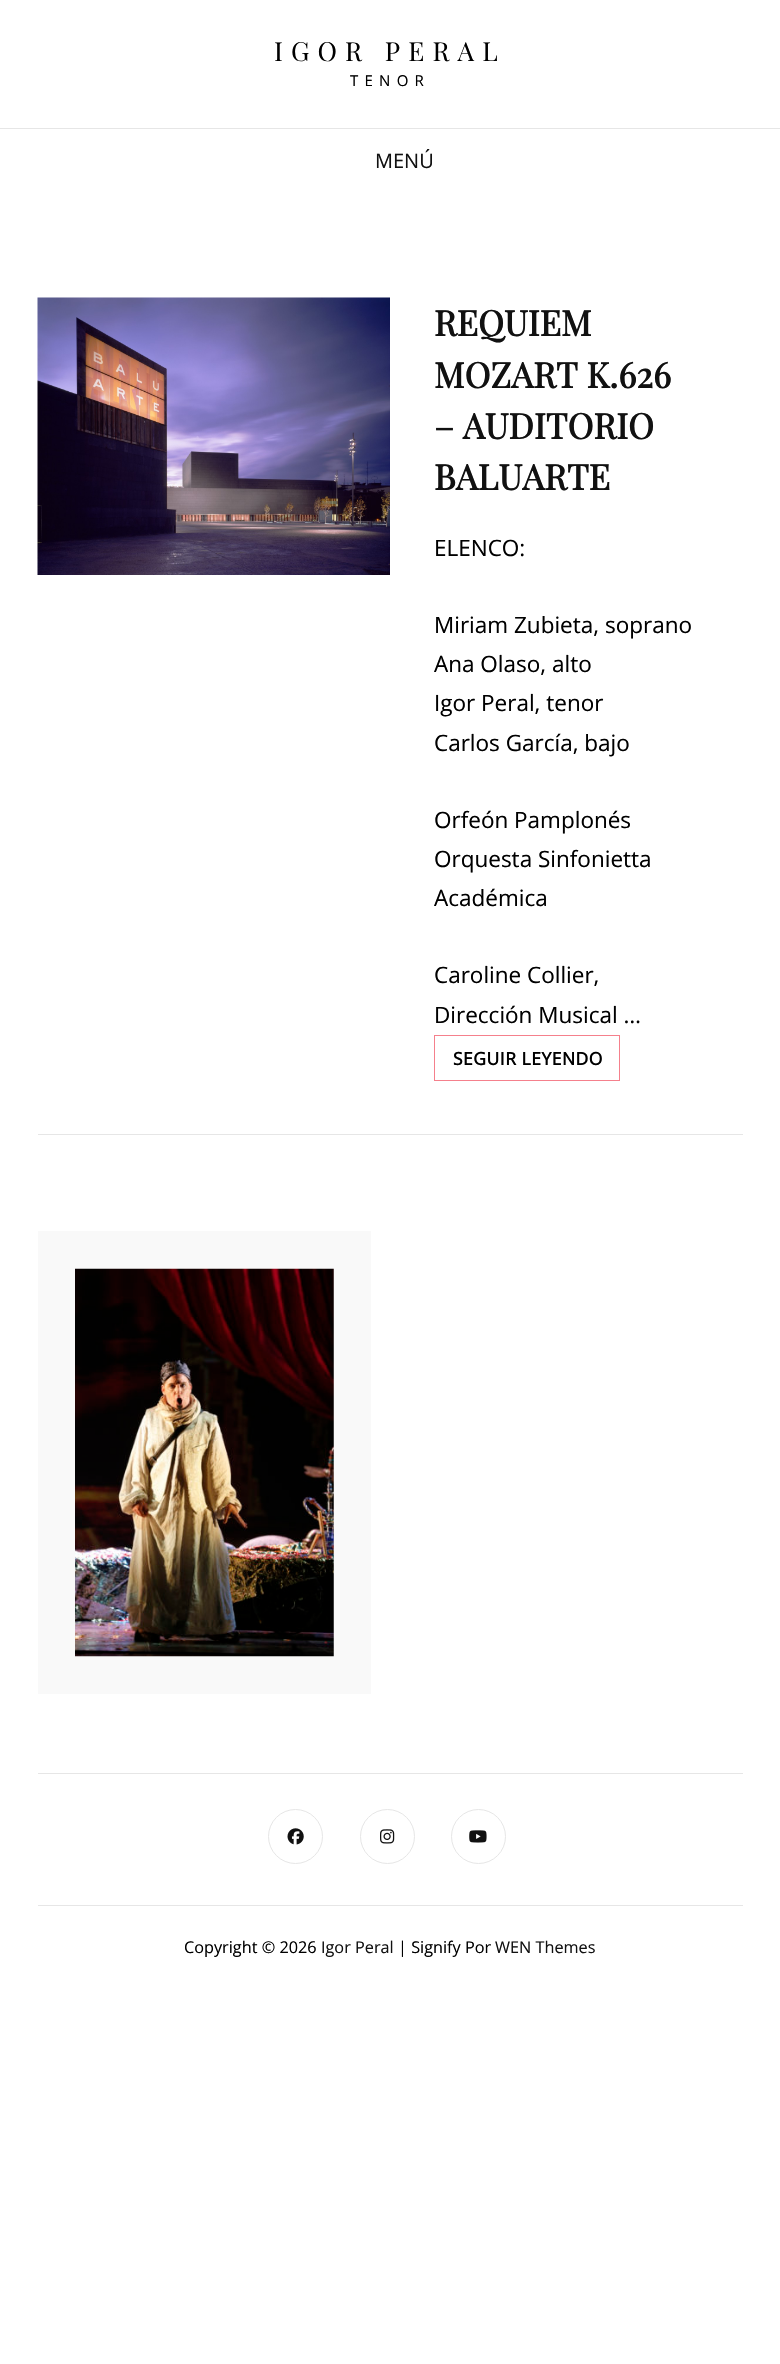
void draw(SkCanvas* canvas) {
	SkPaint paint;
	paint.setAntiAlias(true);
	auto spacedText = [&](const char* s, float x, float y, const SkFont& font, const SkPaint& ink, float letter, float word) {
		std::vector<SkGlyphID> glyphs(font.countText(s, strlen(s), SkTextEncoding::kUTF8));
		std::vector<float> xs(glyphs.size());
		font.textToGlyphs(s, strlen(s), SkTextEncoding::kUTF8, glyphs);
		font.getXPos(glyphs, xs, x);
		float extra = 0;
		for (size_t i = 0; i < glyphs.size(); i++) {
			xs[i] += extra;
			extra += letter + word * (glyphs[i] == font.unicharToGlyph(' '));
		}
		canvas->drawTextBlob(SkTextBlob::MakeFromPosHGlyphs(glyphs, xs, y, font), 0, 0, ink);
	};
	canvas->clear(0xffffffff);
	SkFont f1(fontMgr->matchFamilyStyle("Playfair Display", SkFontStyle::Normal()), 26.25);
	f1.setSubpixel(true);
	paint.setColor(0xff000000);
	spacedText("IGOR PERAL", 274, 61, f1, paint, 8.1, 0);
	SkFont f2(fontMgr->matchFamilyStyle("Open Sans", SkFontStyle::Normal()), 15);
	f2.setSubpixel(true);
	spacedText("TENOR", 350, 86, f2, paint, 6.25, 0);
	paint.setColor(0xffe6e6e6);
	canvas->drawRect(SkRect::MakeXYWH(0, 128, 780, 1), paint);
	SkFont f3(fontMgr->matchFamilyStyle("Open Sans", SkFontStyle::Normal()), 20);
	f3.setSubpixel(true);
	paint.setColor(0xff111111);
	canvas->drawString("MENÚ", 375, 168, f3, paint);
	paint.setColor(0xffe6e6e6);
	canvas->drawRect(SkRect::MakeXYWH(38, 1134, 705, 1), paint);
	canvas->drawImageRect(SkImages::DeferredFromEncodedData(SkData::MakeFromFileName("img1.png")), SkRect::MakeXYWH(37, 297, 353, 278), SkSamplingOptions());
	SkFont f4(fontMgr->matchFamilyStyle("Playfair Display", SkFontStyle::Bold()), 35);
	f4.setSubpixel(true);
	paint.setColor(0xff111111);
	canvas->drawString("REQUIEM", 434, 336, f4, paint);
	canvas->drawString("MOZART K.626", 434, 388, f4, paint);
	canvas->drawString("– AUDITORIO", 434, 439, f4, paint);
	canvas->drawString("BALUARTE", 434, 490, f4, paint);
	SkFont f5(fontMgr->matchFamilyStyle("Open Sans", SkFontStyle::Normal()), 22.5);
	f5.setSubpixel(true);
	paint.setColor(0xff000000);
	canvas->drawString("ELENCO:", 434, 556, f5, paint);
	canvas->drawString("Miriam Zubieta, soprano", 434, 633, f5, paint);
	canvas->drawString("Ana Olaso, alto", 434, 672, f5, paint);
	canvas->drawString("Igor Peral, tenor", 434, 711, f5, paint);
	canvas->drawString("Carlos García, bajo", 434, 751, f5, paint);
	canvas->drawString("Orfeón Pamplonés", 434, 828, f5, paint);
	canvas->drawString("Orquesta Sinfonietta", 434, 867, f5, paint);
	canvas->drawString("Académica", 434, 906, f5, paint);
	canvas->drawString("Caroline Collier,", 434, 983, f5, paint);
	canvas->drawString("Dirección Musical …", 434, 1023, f5, paint);
	paint.setStroke(true);
	paint.setStrokeWidth(1);
	paint.setColor(0xfff5808c);
	canvas->drawRect(SkRect::MakeXYWH(434.5, 1035.5, 185, 45), paint);
	SkFont f6(fontMgr->matchFamilyStyle("Open Sans", SkFontStyle::Bold()), 17.5);
	f6.setSubpixel(true);
	paint.setStroke(false);
	paint.setColor(0xff000000);
	spacedText("SEGUIR LEYENDO", 453, 1065, f6, paint, 0.5, 0);
	paint.setColor(0xfff9f9f9);
	canvas->drawRect(SkRect::MakeXYWH(38, 1231, 333, 463), paint);
	canvas->drawImageRect(SkImages::DeferredFromEncodedData(SkData::MakeFromFileName("img2.png")), SkRect::MakeXYWH(75, 1268, 259, 389), SkSamplingOptions());
	paint.setColor(0xffe6e6e6);
	canvas->drawRect(SkRect::MakeXYWH(38, 1773, 705, 1), paint);
	canvas->drawRect(SkRect::MakeXYWH(38, 1905, 705, 1), paint);
	paint.setStroke(true);
	canvas->drawCircle(295.5, 1836.5, 27, paint);
	canvas->drawImageRect(SkImages::DeferredFromEncodedData(SkData::MakeFromFileName("img3.png")), SkRect::MakeXYWH(287, 1828, 17, 17), SkSamplingOptions());
	canvas->drawCircle(387.5, 1836.5, 27, paint);
	canvas->drawImageRect(SkImages::DeferredFromEncodedData(SkData::MakeFromFileName("img4.png")), SkRect::MakeXYWH(380, 1829, 15, 15), SkSamplingOptions());
	canvas->drawCircle(478.5, 1836.5, 27, paint);
	canvas->drawImageRect(SkImages::DeferredFromEncodedData(SkData::MakeFromFileName("img5.png")), SkRect::MakeXYWH(469, 1830, 18, 13), SkSamplingOptions());
	SkFont f7(fontMgr->matchFamilyStyle("Open Sans", SkFontStyle::Normal()), 16.25);
	f7.setSubpixel(true);
	paint.setStroke(false);
	paint.setColor(0xff000000);
	canvas->drawString("Copyright © 2026", 184, 1953, f7, paint);
	paint.setColor(0xff111111);
	canvas->drawString("Igor Peral", 321, 1953, f7, paint);
	paint.setColor(0xff000000);
	canvas->drawString("| Signify Por", 398, 1953, f7, paint);
	paint.setColor(0xff111111);
	canvas->drawString("WEN Themes", 495, 1953, f7, paint);
}
